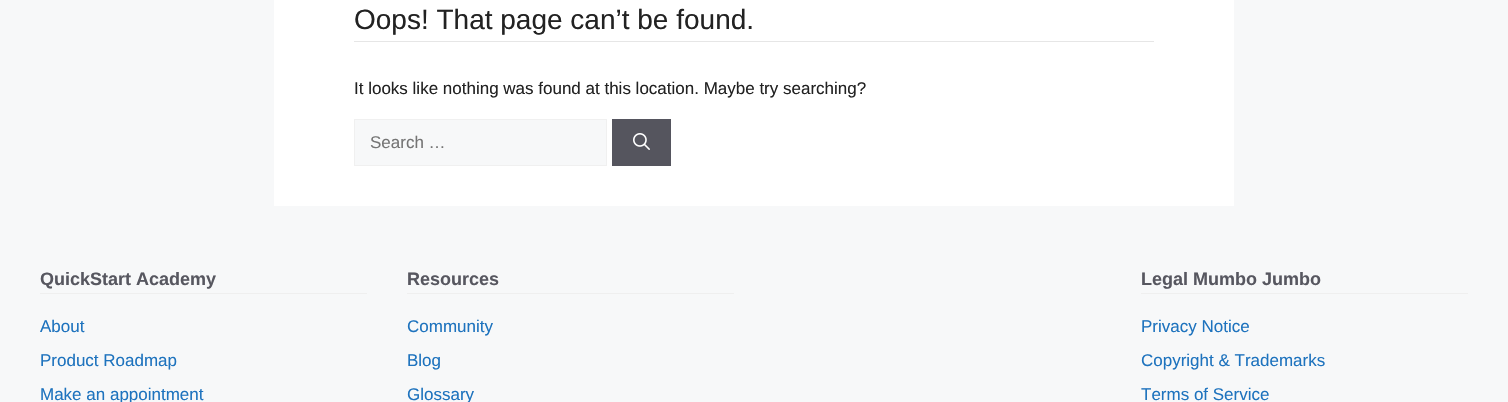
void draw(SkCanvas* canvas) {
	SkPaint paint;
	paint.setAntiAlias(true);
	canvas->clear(0xfff7f8f9);
	paint.setColor(0xffffffff);
	canvas->drawRect(SkRect::MakeXYWH(274, 0, 960, 206), paint);
	paint.setColor(0xffe6e6e6);
	canvas->drawRect(SkRect::MakeXYWH(354, 41, 800, 1), paint);
	SkFont f1(fontMgr->matchFamilyStyle("Liberation Sans", SkFontStyle::Normal()), 28);
	f1.setSubpixel(true);
	paint.setColor(0xff222222);
	canvas->drawString("Oops! That page can’t be found.", 354, 29, f1, paint);
	SkFont f2(fontMgr->matchFamilyStyle("Liberation Sans", SkFontStyle::Normal()), 17);
	f2.setSubpixel(true);
	canvas->drawString("It looks like nothing was found at this location. Maybe try searching?", 354, 94, f2, paint);
	paint.setColor(0xfff7f8f9);
	canvas->drawRect(SkRect::MakeXYWH(354.5, 119.5, 252, 46), paint);
	paint.setStroke(true);
	paint.setStrokeWidth(1);
	paint.setColor(0xfff0f0f0);
	canvas->drawRect(SkRect::MakeXYWH(354.5, 119.5, 252, 46), paint);
	paint.setStroke(false);
	paint.setColor(0xff757575);
	canvas->drawString("Search …", 370, 148, f2, paint);
	paint.setColor(0xff55555e);
	canvas->drawRect(SkRect::MakeXYWH(612, 119, 59, 47), paint);
	canvas->drawImageRect(SkImages::DeferredFromEncodedData(SkData::MakeFromFileName("img1.png")), SkRect::MakeXYWH(633, 133, 17, 17), SkSamplingOptions());
	paint.setColor(0xffefefef);
	canvas->drawRect(SkRect::MakeXYWH(40, 293, 327, 1), paint);
	SkFont f3(fontMgr->matchFamilyStyle("Liberation Sans", SkFontStyle::Bold()), 18);
	f3.setSubpixel(true);
	paint.setColor(0xff575760);
	canvas->drawString("QuickStart Academy", 40, 285, f3, paint);
	paint.setColor(0xff1e73be);
	canvas->drawString("About", 40, 332, f2, paint);
	canvas->drawString("Product Roadmap", 40, 366, f2, paint);
	canvas->drawString("Make an appointment", 40, 400, f2, paint);
	paint.setColor(0xffefefef);
	canvas->drawRect(SkRect::MakeXYWH(407, 293, 327, 1), paint);
	paint.setColor(0xff575760);
	canvas->drawString("Resources", 407, 285, f3, paint);
	paint.setColor(0xff1e73be);
	canvas->drawString("Community", 407, 332, f2, paint);
	canvas->drawString("Blog", 407, 366, f2, paint);
	canvas->drawString("Glossary", 407, 400, f2, paint);
	paint.setColor(0xffefefef);
	canvas->drawRect(SkRect::MakeXYWH(1141, 293, 327, 1), paint);
	paint.setColor(0xff575760);
	canvas->drawString("Legal Mumbo Jumbo", 1141, 285, f3, paint);
	paint.setColor(0xff1e73be);
	canvas->drawString("Privacy Notice", 1141, 332, f2, paint);
	canvas->drawString("Copyright & Trademarks", 1141, 366, f2, paint);
	canvas->drawString("Terms of Service", 1141, 400, f2, paint);
}
